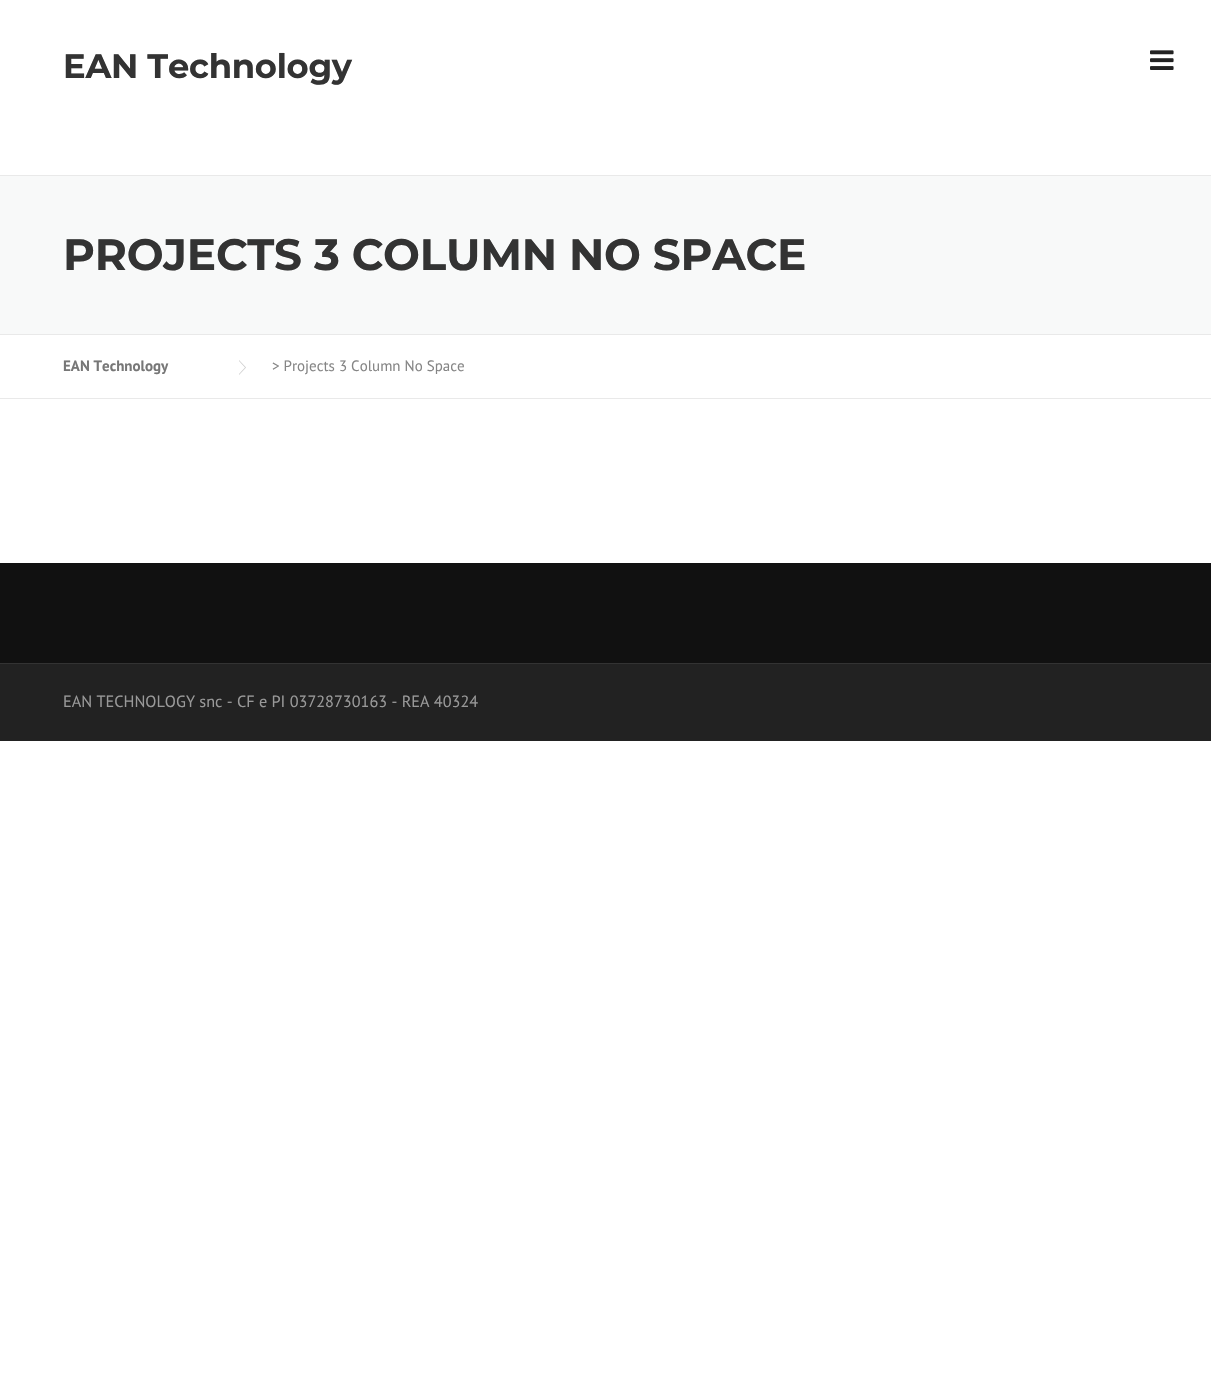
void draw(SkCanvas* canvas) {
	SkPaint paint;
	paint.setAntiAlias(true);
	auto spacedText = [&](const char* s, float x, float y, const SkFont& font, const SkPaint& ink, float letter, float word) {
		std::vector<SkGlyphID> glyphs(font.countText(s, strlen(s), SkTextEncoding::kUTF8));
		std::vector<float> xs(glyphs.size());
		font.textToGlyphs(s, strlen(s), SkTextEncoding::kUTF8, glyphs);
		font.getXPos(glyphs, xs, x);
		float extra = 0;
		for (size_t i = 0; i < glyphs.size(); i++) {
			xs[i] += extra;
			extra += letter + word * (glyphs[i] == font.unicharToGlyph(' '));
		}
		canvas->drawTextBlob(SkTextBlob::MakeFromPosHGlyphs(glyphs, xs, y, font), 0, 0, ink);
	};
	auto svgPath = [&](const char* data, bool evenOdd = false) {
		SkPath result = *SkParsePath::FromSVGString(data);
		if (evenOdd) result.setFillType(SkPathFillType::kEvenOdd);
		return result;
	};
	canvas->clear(0xffffffff);
	SkFont f1(fontMgr->matchFamilyStyle("Montserrat", SkFontStyle::Bold()), 33.75);
	f1.setSubpixel(true);
	paint.setColor(0xff333333);
	spacedText("EAN Technology", 63, 78, f1, paint, -0.25, 0);
	canvas->drawImageRect(SkImages::DeferredFromEncodedData(SkData::MakeFromFileName("img1.png")), SkRect::MakeXYWH(1150, 50, 24, 20), SkSamplingOptions());
	paint.setColor(0xfff8f9f9);
	canvas->drawRect(SkRect::MakeXYWH(0, 176, 1211, 158), paint);
	paint.setColor(0xffe9e9e9);
	canvas->drawRect(SkRect::MakeXYWH(0, 175, 1211, 1), paint);
	canvas->drawRect(SkRect::MakeXYWH(0, 334, 1211, 1), paint);
	SkFont f2(fontMgr->matchFamilyStyle("Montserrat", SkFontStyle::Bold()), 43.75);
	f2.setSubpixel(true);
	paint.setColor(0xff333333);
	spacedText("PROJECTS 3 COLUMN NO SPACE", 63, 270, f2, paint, -0.25, 0);
	paint.setColor(0xffe9e9e9);
	canvas->drawRect(SkRect::MakeXYWH(0, 398, 1211, 1), paint);
	SkFont f3(fontMgr->matchFamilyStyle("PT Sans", SkFontStyle::Bold()), 15);
	f3.setSubpixel(true);
	paint.setColor(0xff777777);
	canvas->drawString("EAN Technology", 63, 371, f3, paint);
	paint.setColor(0xffcccccc);
	canvas->drawPath(svgPath("M239 375V360L246 367.5Z"), paint);
	paint.setColor(0xffffffff);
	canvas->drawPath(svgPath("M239 374V361L245 367.5Z"), paint);
	SkFont f4(fontMgr->matchFamilyStyle("PT Sans", SkFontStyle::Normal()), 15);
	f4.setSubpixel(true);
	paint.setColor(0xff858585);
	canvas->drawString("> Projects 3 Column No Space", 272, 371, f4, paint);
	paint.setColor(0xff111111);
	canvas->drawRect(SkRect::MakeXYWH(0, 563, 1211, 100), paint);
	paint.setColor(0xff222222);
	canvas->drawRect(SkRect::MakeXYWH(0, 664, 1211, 77), paint);
	paint.setColor(0xff333333);
	canvas->drawRect(SkRect::MakeXYWH(0, 663, 1211, 1), paint);
	SkFont f5(fontMgr->matchFamilyStyle("PT Sans", SkFontStyle::Normal()), 16.25);
	f5.setSubpixel(true);
	paint.setColor(0xff999999);
	canvas->drawString("EAN TECHNOLOGY snc - CF e PI 03728730163 - REA 40324", 63, 707, f5, paint);
}
